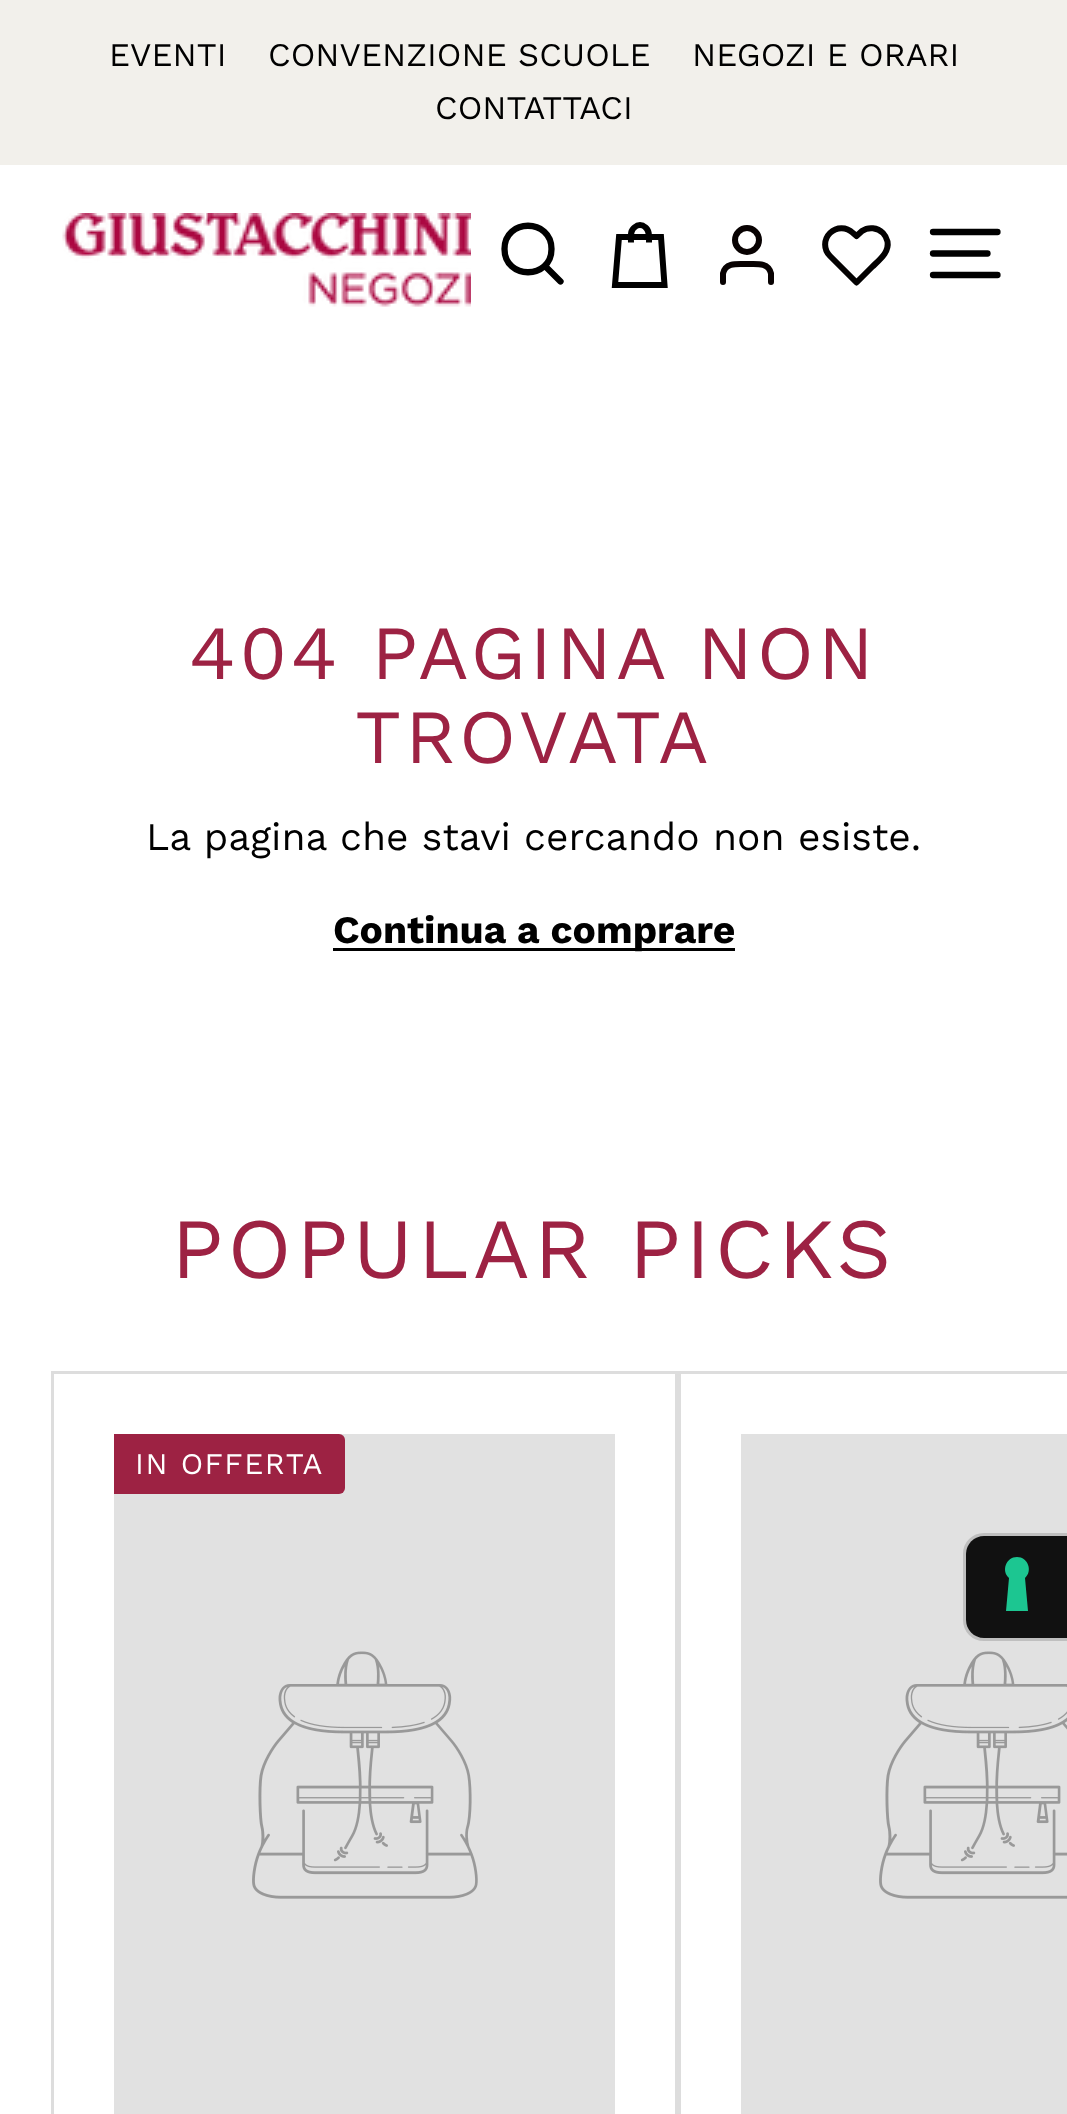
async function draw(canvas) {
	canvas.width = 1067;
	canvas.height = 2114;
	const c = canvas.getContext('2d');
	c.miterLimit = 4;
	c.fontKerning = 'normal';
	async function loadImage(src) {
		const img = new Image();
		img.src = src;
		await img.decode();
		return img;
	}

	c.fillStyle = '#fff';
	c.fillRect(0, 0, 1067, 2114);
	c.fillStyle = '#f2f0eb';
	c.fillRect(0, 0, 1067, 165);
	c.font = '33px Work Sans';
	c.fillStyle = '#000';
	for (const [text, x, y] of [
		['EVENTI', 109, 66],
		['CONVENZIONE SCUOLE', 268, 66],
		['NEGOZI E ORARI', 692, 66],
		['CONTATTACI', 435, 119],
	]) {
		c.fillText(text, x, y);
	}
	c.drawImage(await loadImage('img1.png'), 62, 213, 409, 94);
	c.beginPath();
	c.moveTo(551.5, 249);
	c.bezierCurveTo(551.5, 280, 504.5, 280, 504.5, 249);
	c.bezierCurveTo(504.5, 218, 551.5, 218, 551.5, 249);
	c.closePath();
	c.moveTo(560.5, 281.5);
	c.lineTo(545, 266);
	c.strokeStyle = '#000';
	c.lineWidth = 6.3;
	c.lineCap = 'round';
	c.lineJoin = 'round';
	c.stroke();
	c.beginPath();
	c.moveTo(619, 237);
	c.lineTo(661, 237);
	c.lineTo(664.5, 285);
	c.lineTo(615, 285);
	c.closePath();
	c.lineWidth = 6;
	c.lineCap = 'butt';
	c.lineJoin = 'miter';
	c.stroke();
	c.beginPath();
	c.moveTo(649, 242.5);
	c.bezierCurveTo(649, 237, 650, 230.5, 645, 227);
	c.bezierCurveTo(643.5, 225.5, 641.5, 225, 640, 225);
	c.bezierCurveTo(638, 225, 636.5, 225.5, 635, 227);
	c.bezierCurveTo(629.5, 230.5, 631, 237, 631, 242.5);
	c.stroke();
	c.beginPath();
	c.moveTo(771, 282);
	c.lineTo(771, 273.5);
	c.bezierCurveTo(768.5, 262, 756, 264, 747, 264);
	c.bezierCurveTo(738, 264, 725.5, 262, 723, 273.5);
	c.lineTo(723, 282);
	c.strokeStyle = '#080202';
	c.lineCap = 'round';
	c.lineJoin = 'round';
	c.stroke();
	c.beginPath();
	c.arc(747, 240, 12, 0, 2 * Math.PI);
	c.stroke();
	c.beginPath();
	c.moveTo(883, 233);
	c.bezierCurveTo(877.5, 227.5, 868.5, 226.5, 862, 231);
	c.lineTo(856.5, 236);
	c.lineTo(853, 233);
	c.bezierCurveTo(846.5, 226.5, 836.5, 226.5, 830, 233);
	c.bezierCurveTo(823.5, 239.5, 823.5, 249.5, 830, 256);
	c.lineTo(856.5, 282.5);
	c.lineTo(872, 267);
	c.bezierCurveTo(879, 260, 889.5, 252.5, 887.5, 241.5);
	c.bezierCurveTo(886.5, 238, 885, 235, 883, 233);
	c.closePath();
	c.strokeStyle = '#030101';
	c.stroke();
	c.beginPath();
	c.moveTo(933, 232);
	c.lineTo(997.5, 232);
	c.strokeStyle = '#000';
	c.lineWidth = 6.3;
	c.stroke();
	c.beginPath();
	c.moveTo(933, 253.5);
	c.lineTo(987.5, 253.5);
	c.stroke();
	c.beginPath();
	c.moveTo(933, 275);
	c.lineTo(997.5, 275);
	c.stroke();
	c.letterSpacing = '3.75px';
	c.font = '76.5px Work Sans';
	c.fillStyle = '#9d2243';
	c.fillText('404 PAGINA NON', 189, 679);
	c.fillText('TROVATA', 355, 763);
	c.letterSpacing = '0px';
	c.font = '39px Work Sans';
	c.fillStyle = '#000';
	c.fillText('La pagina che stavi cercando non esiste.', 146, 850);
	c.fillRect(333, 948, 402, 3);
	c.font = 'bold 39px Work Sans';
	c.fillText('Continua a comprare', 333, 943);
	c.letterSpacing = '4.25px';
	c.font = '85.75px Work Sans';
	c.fillStyle = '#9d2243';
	c.fillText('POPULAR PICKS', 171, 1278);
	for (const [x, y, w, h, color] of [
		[51, 1371, 1016, 3, '#ddd'],
		[675, 1371, 3, 743, '#ddd'],
		[51, 1374, 3, 740, '#ddd'],
		[114, 1434, 501, 680, '#e1e1e1'],
	]) {
		c.fillStyle = color;
		c.fillRect(x, y, w, h);
	}
	c.drawImage(await loadImage('img2.png'), 252, 1651, 226, 248);
	c.fillStyle = '#9d2243';
	c.beginPath();
	c.roundRect(114, 1434, 231, 60, [0, 6, 6, 0]);
	c.fill();
	c.letterSpacing = '1.5px';
	c.font = '30px Work Sans';
	c.fillStyle = '#fff';
	c.fillText('IN OFFERTA', 135, 1474);
	c.fillStyle = '#ddd';
	c.fillRect(678, 1374, 3, 740);
	c.fillStyle = '#e1e1e1';
	c.fillRect(741, 1434, 326, 680);
	c.drawImage(await loadImage('img3.png'), 879, 1651, 188, 248);
	c.beginPath();
	c.moveTo(984, 1534.5);
	c.lineTo(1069.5, 1534.5);
	c.lineTo(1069.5, 1639.5);
	c.lineTo(984, 1639.5);
	c.bezierCurveTo(973, 1639.5, 964.5, 1631, 964.5, 1620);
	c.lineTo(964.5, 1554);
	c.bezierCurveTo(964.5, 1543, 973, 1534.5, 984, 1534.5);
	c.closePath();
	c.strokeStyle = '#bfbfbf';
	c.lineWidth = 3;
	c.lineJoin = 'miter';
	c.stroke();
	c.fillStyle = '#111';
	c.beginPath();
	c.moveTo(984, 1536);
	c.lineTo(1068, 1536);
	c.lineTo(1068, 1638);
	c.lineTo(984, 1638);
	c.bezierCurveTo(974, 1638, 966, 1630, 966, 1620);
	c.lineTo(966, 1554);
	c.bezierCurveTo(966, 1544, 974, 1536, 984, 1536);
	c.closePath();
	c.fill();
	c.fillStyle = '#1cc691';
	c.beginPath();
	c.moveTo(1017, 1557);
	c.bezierCurveTo(1028, 1557, 1033, 1571, 1025, 1578);
	c.lineTo(1028, 1611);
	c.lineTo(1006, 1611);
	c.lineTo(1009, 1578);
	c.bezierCurveTo(1001, 1571, 1006, 1557, 1017, 1557);
	c.closePath();
	c.fill('evenodd');
}

draw(document.querySelector('canvas'));
